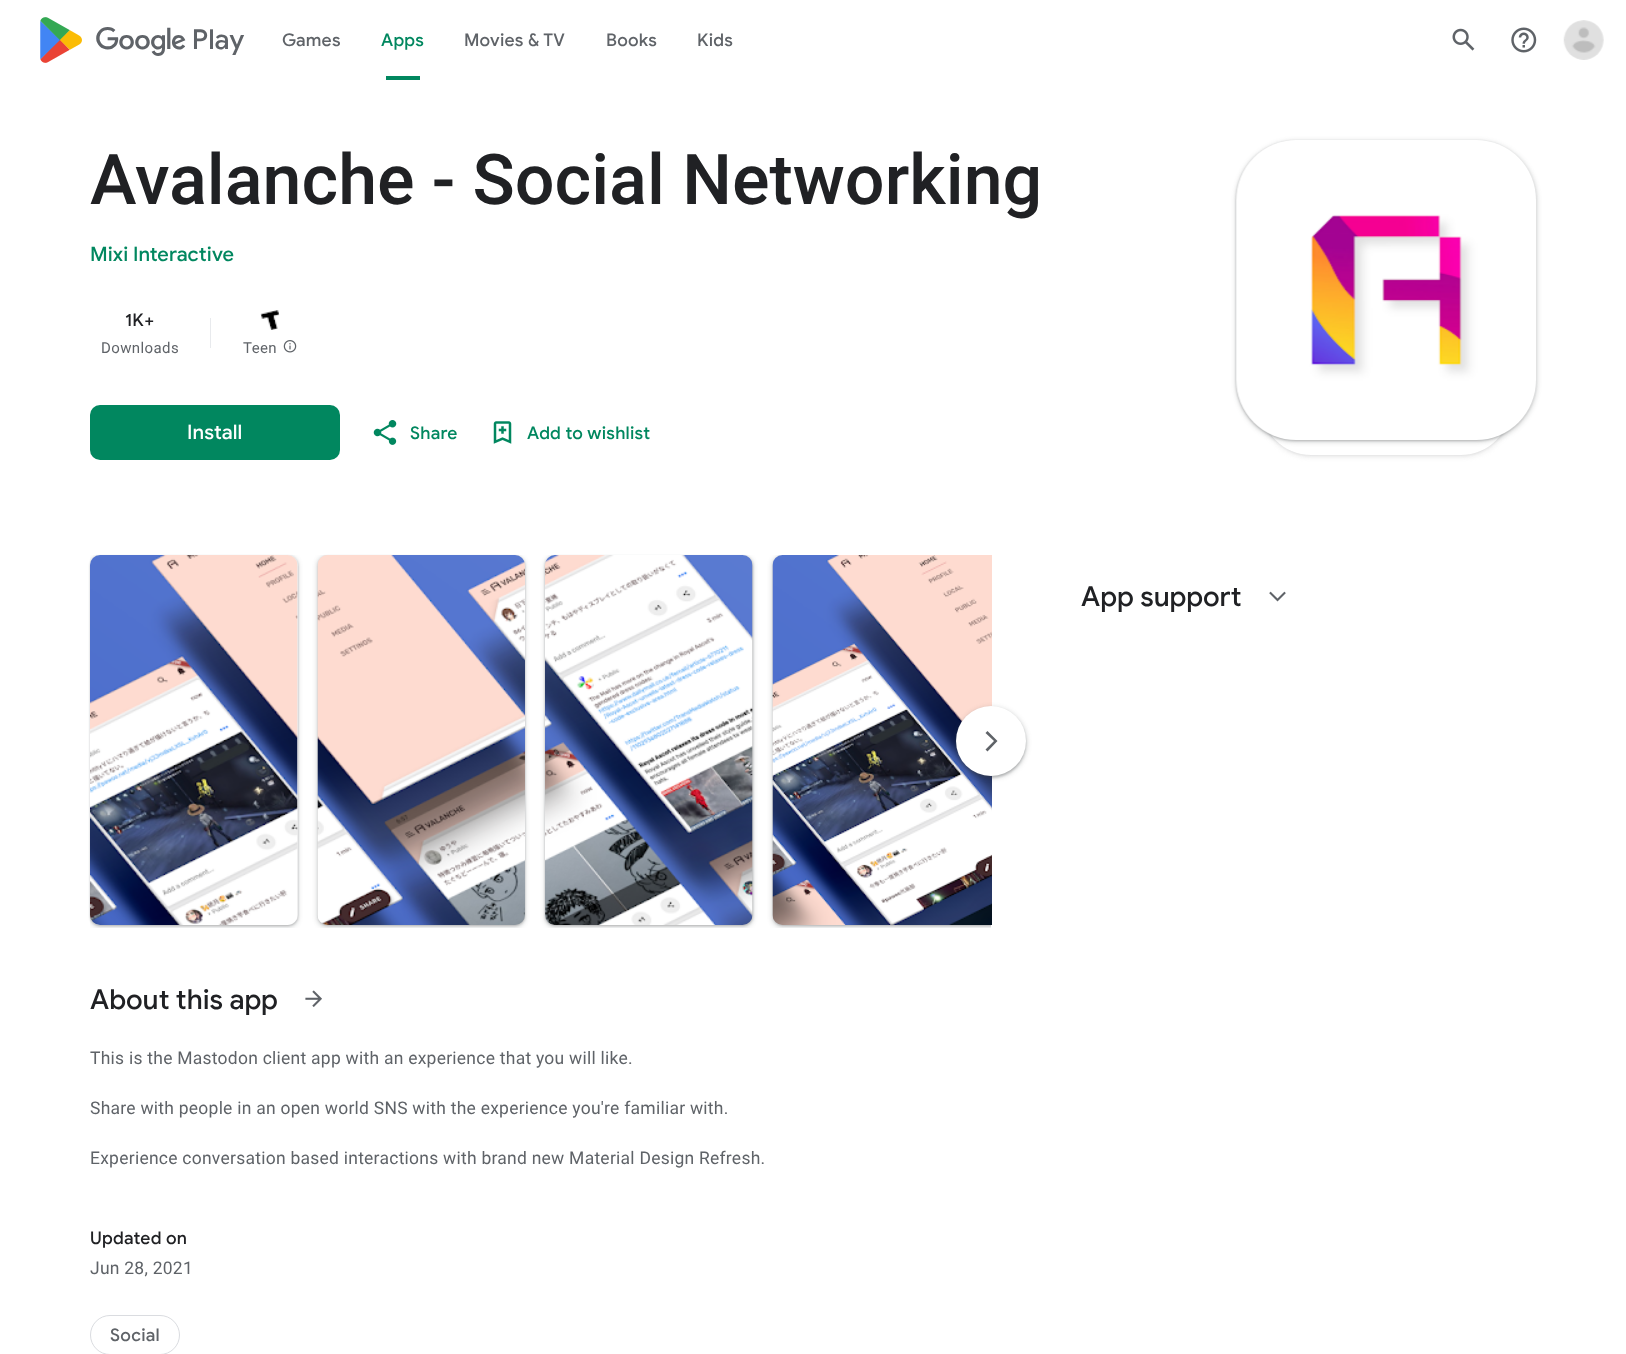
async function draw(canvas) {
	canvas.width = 1626;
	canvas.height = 1354;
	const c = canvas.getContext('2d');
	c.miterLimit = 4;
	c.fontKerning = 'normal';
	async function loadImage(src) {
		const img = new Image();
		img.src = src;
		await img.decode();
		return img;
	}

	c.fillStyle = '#fff';
	c.fillRect(0, 0, 1626, 1354);
	c.drawImage(await loadImage('img1.png'), 40, 17, 42, 46);
	c.font = '500 27.5px Google Sans';
	c.fillStyle = '#5f6368';
	c.fillText('google_logo Play', 95, 49);
	c.letterSpacing = '0.25px';
	c.font = '500 17.5px Google Sans';
	c.fillText('Games', 282, 46);
	c.fillStyle = '#01875f';
	c.fillText('Apps', 381, 46);
	c.fillRect(386, 76, 34, 4);
	c.fillStyle = '#5f6368';
	for (const [text, x, y] of [
		['Movies & TV', 464, 46],
		['Books', 606, 46],
		['Kids', 697, 46],
	]) {
		c.fillText(text, x, y);
	}
	c.drawImage(await loadImage('img2.png'), 1452, 28, 23, 23);
	c.drawImage(await loadImage('img3.png'), 1511, 27, 26, 26);
	c.drawImage(await loadImage('img4.png'), 1563, 20, 41, 40);
	c.letterSpacing = '0px';
	c.font = '500 70px Roboto';
	c.fillStyle = '#202124';
	c.fillText('Avalanche - Social Networking', 90, 204);
	c.letterSpacing = '0.1px';
	c.font = '500 20px Google Sans';
	c.fillStyle = '#01875f';
	c.fillText('Mixi Interactive', 90, 261);
	c.letterSpacing = '0.25px';
	c.font = '500 17.5px Google Sans';
	c.fillStyle = '#202124';
	c.fillText('1K+', 125, 326);
	c.letterSpacing = '0.4px';
	c.font = '15px Roboto';
	c.fillStyle = '#5f6368';
	c.fillText('Downloads', 101, 353);
	c.fillStyle = '#e8eaed';
	c.fillRect(210, 318, 1, 30);
	c.drawImage(await loadImage('img5.png'), 260, 310, 20, 20);
	c.fillStyle = '#5f6368';
	c.fillText('Teen', 243, 353);
	c.drawImage(await loadImage('img6.png'), 283, 340, 14, 13);
	c.save();
	c.beginPath();
	c.moveTo(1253, 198);
	c.lineTo(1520, 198);
	c.lineTo(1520, 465);
	c.lineTo(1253, 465);
	c.closePath();
	c.moveTo(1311, 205);
	c.lineTo(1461, 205);
	c.bezierCurveTo(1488.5, 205, 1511, 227.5, 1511, 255);
	c.lineTo(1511, 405);
	c.bezierCurveTo(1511, 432.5, 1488.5, 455, 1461, 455);
	c.lineTo(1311, 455);
	c.bezierCurveTo(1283.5, 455, 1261, 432.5, 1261, 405);
	c.lineTo(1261, 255);
	c.bezierCurveTo(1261, 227.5, 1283.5, 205, 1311, 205);
	c.closePath();
	c.clip('evenodd');
	c.fillStyle = '#9ea0a126';
	c.filter = 'blur(2px)';
	c.beginPath();
	c.roundRect(1260, 205, 253, 253, 51);
	c.fill();
	c.filter = 'none';
	c.restore();
	c.save();
	c.beginPath();
	c.moveTo(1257, 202);
	c.lineTo(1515, 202);
	c.lineTo(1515, 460);
	c.lineTo(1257, 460);
	c.closePath();
	c.moveTo(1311, 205);
	c.lineTo(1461, 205);
	c.bezierCurveTo(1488.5, 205, 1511, 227.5, 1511, 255);
	c.lineTo(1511, 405);
	c.bezierCurveTo(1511, 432.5, 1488.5, 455, 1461, 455);
	c.lineTo(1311, 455);
	c.bezierCurveTo(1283.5, 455, 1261, 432.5, 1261, 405);
	c.lineTo(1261, 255);
	c.bezierCurveTo(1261, 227.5, 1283.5, 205, 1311, 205);
	c.closePath();
	c.clip('evenodd');
	c.fillStyle = '#9ea0a14d';
	c.filter = 'blur(1px)';
	c.beginPath();
	c.roundRect(1261, 206, 250, 250, 50);
	c.fill();
	c.filter = 'none';
	c.restore();
	c.drawImage(await loadImage('img8.png'), 1261, 428, 249, 29);
	c.fillStyle = '#3c404326';
	c.filter = 'blur(2px)';
	c.beginPath();
	c.roundRect(1235, 140, 303, 303, 61);
	c.fill();
	c.filter = 'none';
	c.fillStyle = '#3c40434d';
	c.filter = 'blur(1px)';
	c.beginPath();
	c.roundRect(1236, 141, 300, 300, 60);
	c.fill();
	c.filter = 'none';
	c.drawImage(await loadImage('img7.png'), 1236, 140, 301, 300);
	c.fillStyle = '#01875f';
	c.beginPath();
	c.roundRect(90, 405, 250, 55, 10);
	c.fill();
	c.letterSpacing = '0.1px';
	c.font = '500 20px Google Sans';
	c.fillStyle = '#fff';
	c.fillText('Install', 187, 439);
	c.drawImage(await loadImage('img9.png'), 373, 420, 24, 25);
	c.letterSpacing = '0.25px';
	c.font = '500 17.5px Google Sans';
	c.fillStyle = '#01875f';
	c.fillText('Share', 410, 439);
	c.drawImage(await loadImage('img10.png'), 493, 421, 19, 23);
	c.fillText('Add to wishlist', 527, 439);
	c.letterSpacing = '0px';
	c.font = '500 27.5px Google Sans';
	c.fillStyle = '#202124';
	c.fillText('App support', 1081, 606);
	c.save();
	c.beginPath();
	c.rect(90, 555, 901, 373);
	c.clip();
	c.fillStyle = '#3c404326';
	c.filter = 'blur(2px)';
	c.beginPath();
	c.roundRect(771, 555, 554, 373, 11);
	c.fill();
	c.filter = 'none';
	c.fillStyle = '#3c40434d';
	c.filter = 'blur(1px)';
	c.beginPath();
	c.roundRect(773, 556, 551, 370, 10);
	c.fill();
	c.filter = 'none';
	c.restore();
	c.drawImage(await loadImage('img11.png'), 1269, 591, 17, 11);
	c.save();
	c.beginPath();
	c.rect(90, 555, 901, 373);
	c.clip();
	c.fillStyle = '#3c404326';
	c.filter = 'blur(2px)';
	c.beginPath();
	c.roundRect(89, 555, 210, 373, 11);
	c.fill();
	c.filter = 'none';
	c.restore();
	c.save();
	c.beginPath();
	c.moveTo(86, 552);
	c.lineTo(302, 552);
	c.lineTo(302, 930);
	c.lineTo(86, 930);
	c.closePath();
	c.moveTo(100, 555);
	c.lineTo(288, 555);
	c.bezierCurveTo(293.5, 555, 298, 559.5, 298, 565);
	c.lineTo(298, 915);
	c.bezierCurveTo(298, 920.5, 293.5, 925, 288, 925);
	c.lineTo(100, 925);
	c.bezierCurveTo(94.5, 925, 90, 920.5, 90, 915);
	c.lineTo(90, 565);
	c.bezierCurveTo(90, 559.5, 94.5, 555, 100, 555);
	c.closePath();
	c.clip('evenodd');
	c.fillStyle = '#3c40434d';
	c.filter = 'blur(1px)';
	c.beginPath();
	c.roundRect(90, 556, 208, 370, 10);
	c.fill();
	c.filter = 'none';
	c.restore();
	c.drawImage(await loadImage('img12.png'), 90, 555, 208, 370);
	c.save();
	c.beginPath();
	c.rect(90, 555, 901, 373);
	c.clip();
	c.fillStyle = '#3c404326';
	c.filter = 'blur(2px)';
	c.beginPath();
	c.roundRect(316, 555, 210, 373, 11);
	c.fill();
	c.filter = 'none';
	c.restore();
	c.fillStyle = '#3c40434d';
	c.filter = 'blur(1px)';
	c.beginPath();
	c.roundRect(318, 556, 207, 370, 10);
	c.fill();
	c.filter = 'none';
	c.drawImage(await loadImage('img13.png'), 317, 555, 208, 370);
	c.save();
	c.beginPath();
	c.rect(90, 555, 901, 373);
	c.clip();
	c.fillStyle = '#3c404326';
	c.filter = 'blur(2px)';
	c.beginPath();
	c.roundRect(544, 555, 210, 373, 11);
	c.fill();
	c.filter = 'none';
	c.restore();
	c.filter = 'blur(1px)';
	c.beginPath();
	c.roundRect(545, 556, 208, 370, 10);
	c.fill();
	c.filter = 'none';
	c.drawImage(await loadImage('img14.png'), 545, 555, 208, 370);
	c.drawImage(await loadImage('img15.png'), 772, 555, 220, 370);
	c.fillStyle = '#3c404326';
	c.filter = 'blur(2px)';
	c.beginPath();
	c.roundRect(955, 706, 73, 73, 36.5);
	c.fill();
	c.filter = 'none';
	c.fillStyle = '#3c40434d';
	c.filter = 'blur(1px)';
	c.beginPath();
	c.roundRect(956, 708, 70, 70, 35);
	c.fill();
	c.filter = 'none';
	c.fillStyle = '#fff';
	c.beginPath();
	c.arc(991, 741, 35, 0, 2 * Math.PI);
	c.fill();
	c.fillStyle = '#5f6368';
	c.beginPath();
	c.moveTo(985.5, 749.5);
	c.lineTo(987.5, 751.5);
	c.lineTo(997.5, 741);
	c.lineTo(987.5, 731);
	c.lineTo(985.5, 733);
	c.lineTo(994, 741);
	c.closePath();
	c.fill();
	c.fillStyle = '#202124';
	c.fillText('About this app', 90, 1009);
	c.drawImage(await loadImage('img16.png'), 305, 990, 17, 17);
	c.letterSpacing = '0.25px';
	c.font = '17.5px Roboto';
	c.fillStyle = '#5f6368';
	for (const [text, x, y] of [
		['This is the Mastodon client app with an experience that you will like.', 90, 1064],
		['Share with people in an open world SNS with the experience you\'re familiar with.', 90, 1114],
		['Experience conversation based interactions with brand new Material Design Refresh.', 90, 1164],
	]) {
		c.fillText(text, x, y);
	}
	c.font = '500 17.5px Google Sans';
	c.fillStyle = '#202124';
	c.fillText('Updated on', 90, 1244);
	c.font = '17.5px Roboto';
	c.fillStyle = '#5f6368';
	c.fillText('Jun 28, 2021', 90, 1274);
	c.beginPath();
	c.roundRect(90.5, 1315.5, 89, 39, 19.5);
	c.strokeStyle = '#dadce0';
	c.stroke();
	c.font = '500 17.5px Google Sans';
	c.fillText('Social', 110, 1341);
}

draw(document.querySelector('canvas'));
